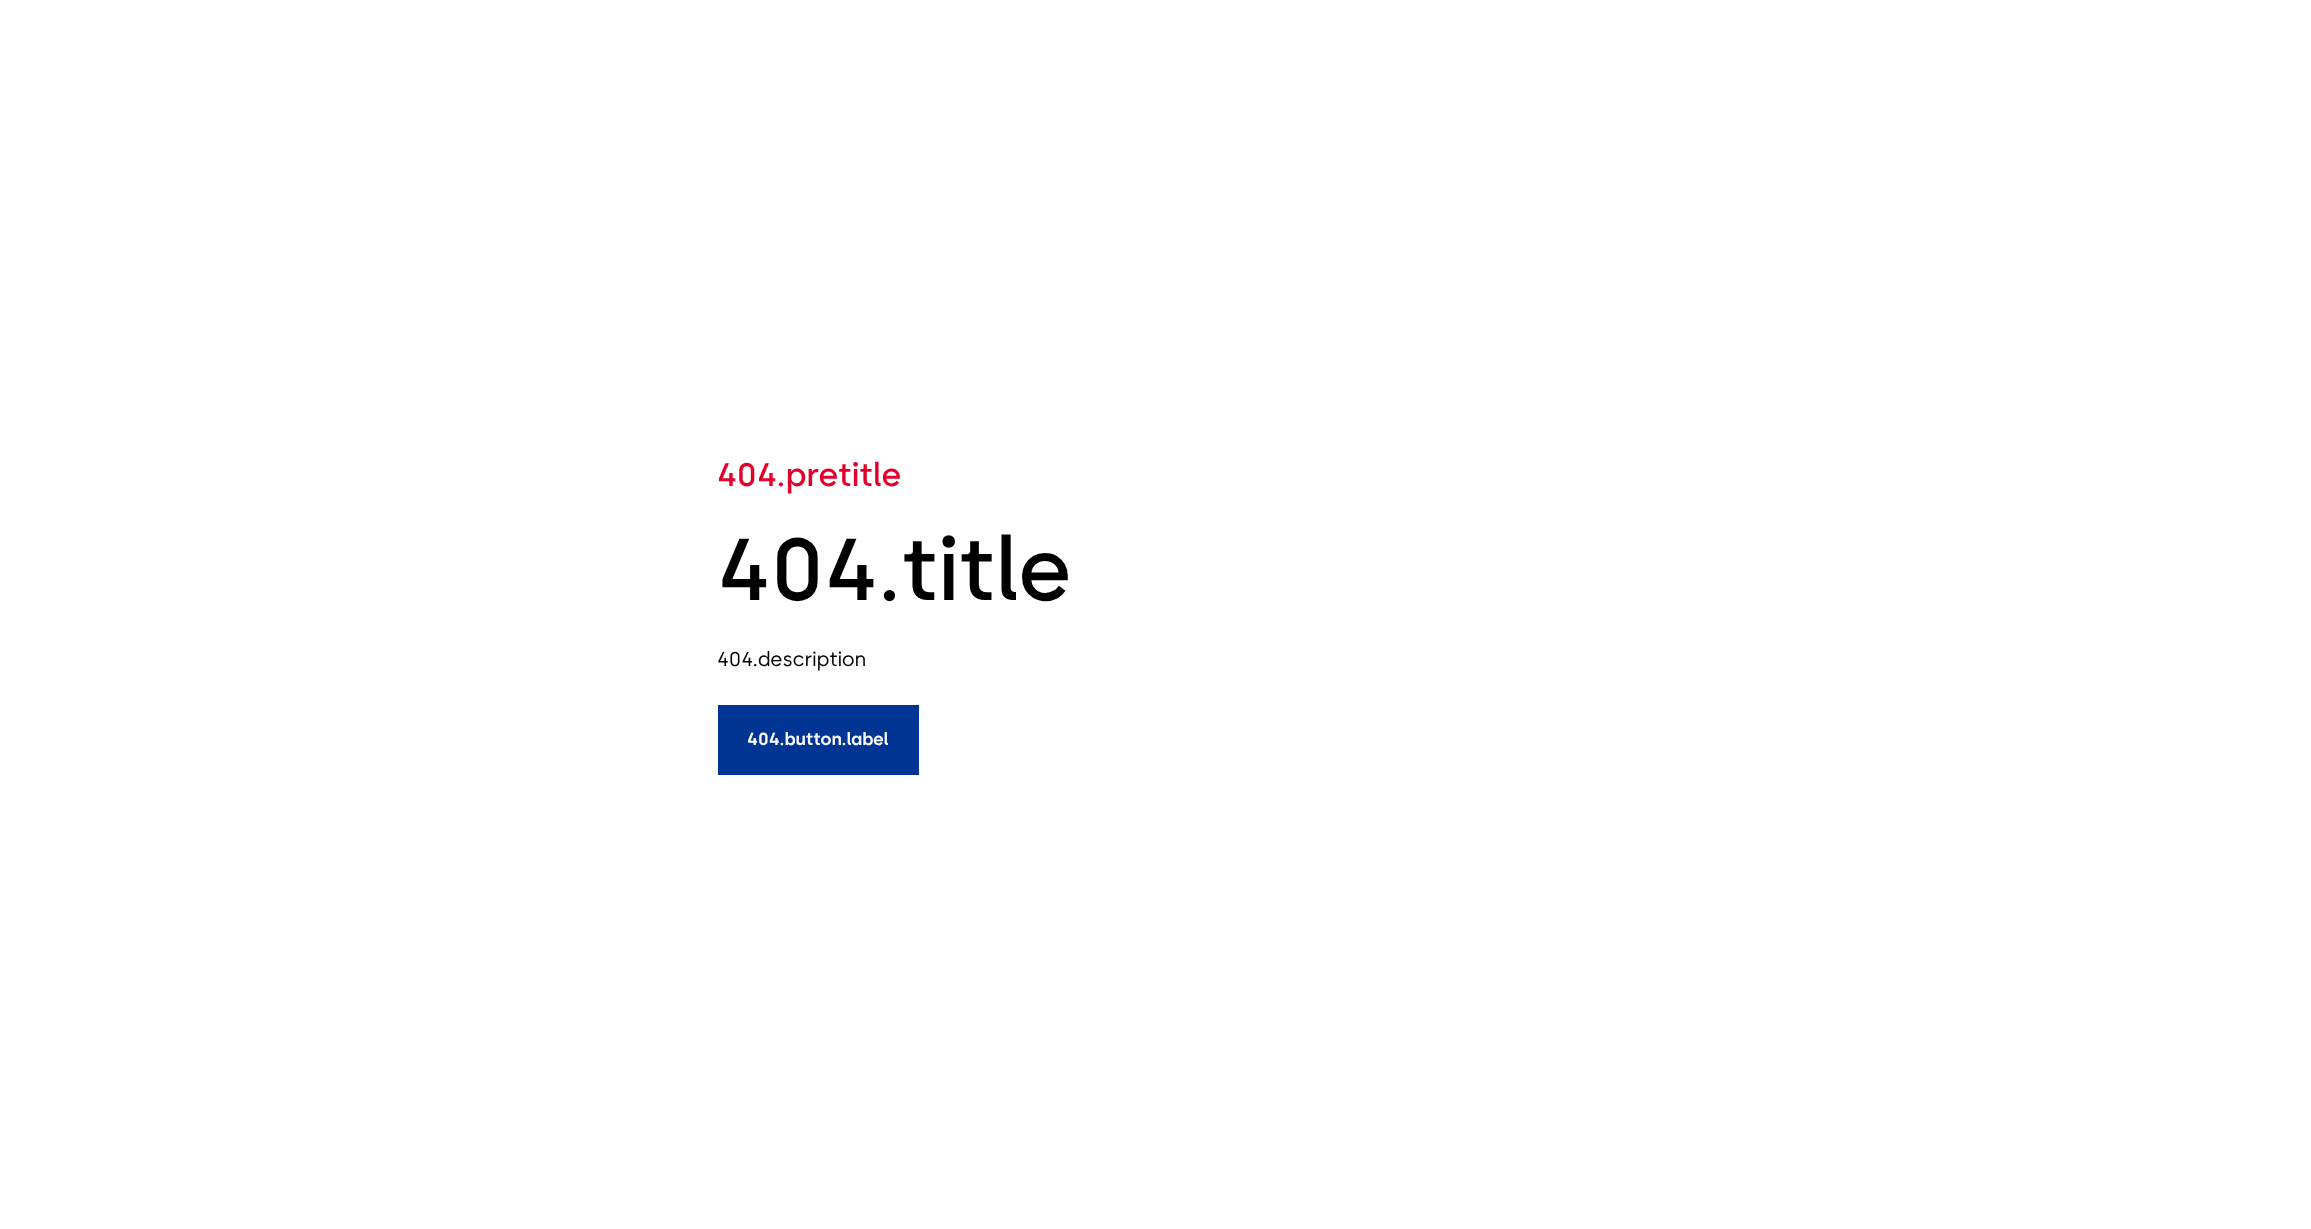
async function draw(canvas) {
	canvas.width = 2311;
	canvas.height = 1229;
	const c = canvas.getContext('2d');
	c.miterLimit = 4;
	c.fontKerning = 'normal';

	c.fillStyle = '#fff';
	c.fillRect(0, 0, 2311, 1229);
	c.font = '600 32.5px "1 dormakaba"';
	c.fillStyle = '#e4002b';
	c.fillText('404.pretitle', 717, 486);
	c.font = '600 87.5px "1 dormakaba"';
	c.fillStyle = '#000';
	c.fillText('404.title', 717, 600);
	c.font = '20px "1 dormakaba"';
	c.fillText('404.description', 717, 666);
	c.fillStyle = '#003594';
	c.fillRect(718, 705, 201, 70);
	c.font = 'bold 17.5px "1 dormakaba"';
	c.fillStyle = '#fff';
	c.fillText('404.button.label', 747, 745);
}

draw(document.querySelector('canvas'));
